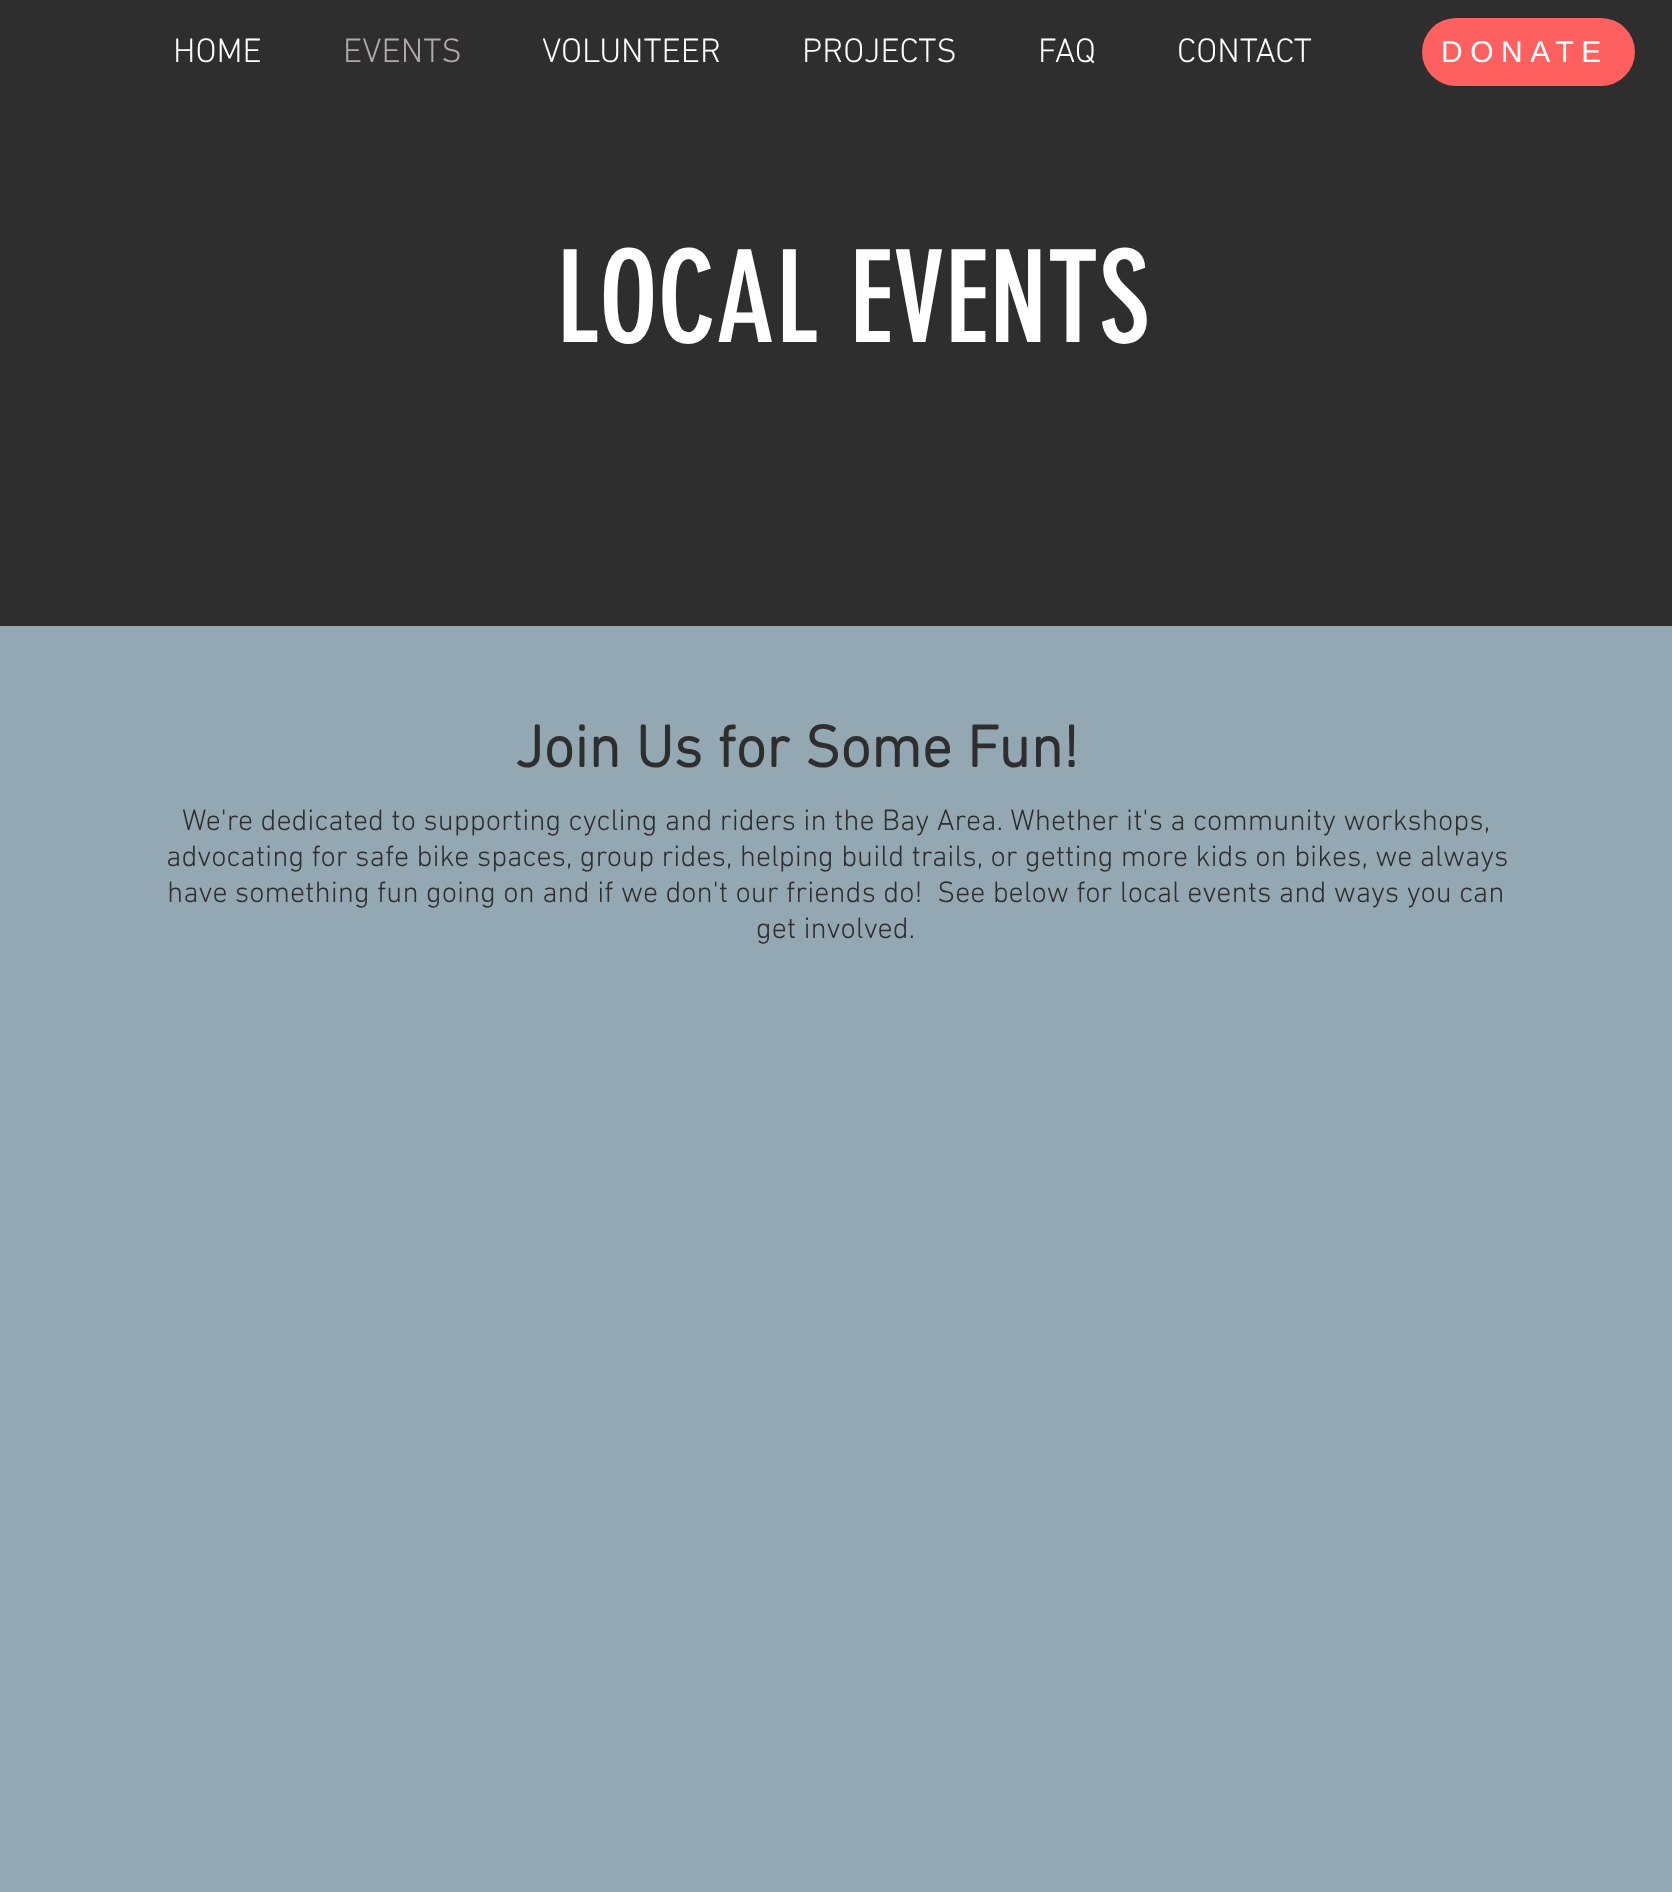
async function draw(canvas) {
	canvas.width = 1672;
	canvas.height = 1892;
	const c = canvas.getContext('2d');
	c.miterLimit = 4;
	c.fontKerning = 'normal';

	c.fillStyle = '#94a8b3';
	c.fillRect(0, 0, 1672, 1892);
	c.fillStyle = '#2f2e2e';
	c.fillRect(0, 0, 1672, 626);
	c.font = '300 34.5px "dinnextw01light"';
	c.fillStyle = '#fff';
	c.fillText('HOME', 173, 62);
	c.fillStyle = '#b0aaa9';
	c.fillText('EVENTS', 343, 62);
	c.fillStyle = '#fff';
	for (const [text, x, y] of [
		['VOLUNTEER', 542, 62],
		['PROJECTS', 802, 62],
		['FAQ', 1038, 62],
		['CONTACT', 1177, 62],
	]) {
		c.fillText(text, x, y);
	}
	c.fillStyle = '#fe6060';
	c.beginPath();
	c.roundRect(1422, 18, 213, 68, 34);
	c.fill();
	c.letterSpacing = '7.5px';
	c.font = '30px Liberation Sans';
	c.fillStyle = '#fff';
	c.fillText('DONATE', 1441, 62);
	c.letterSpacing = '0px';
	c.font = '126px "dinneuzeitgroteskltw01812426"';
	c.fillText('LOCAL EVENTS', 555, 342);
	c.font = 'bold 60px "dinnextw01light"';
	c.fillStyle = '#2f2e2e';
	c.fillText('Join Us for Some Fun!', 515, 767);
	c.font = '300 30px "dinnextw01light"';
	for (const [text, x, y] of [
		['We\'re dedicated to supporting cycling and riders in the Bay Area. Whether it\'s a community workshops,', 182, 830],
		['advocating for safe bike spaces, group rides, helping build trails, or getting more kids on bikes, we always', 166, 866],
		['have something fun going on and if we don\'t our friends do!  See below for local events and ways you can', 167, 902],
		['get involved.', 756, 938],
	]) {
		c.fillText(text, x, y);
	}
}

draw(document.querySelector('canvas'));
